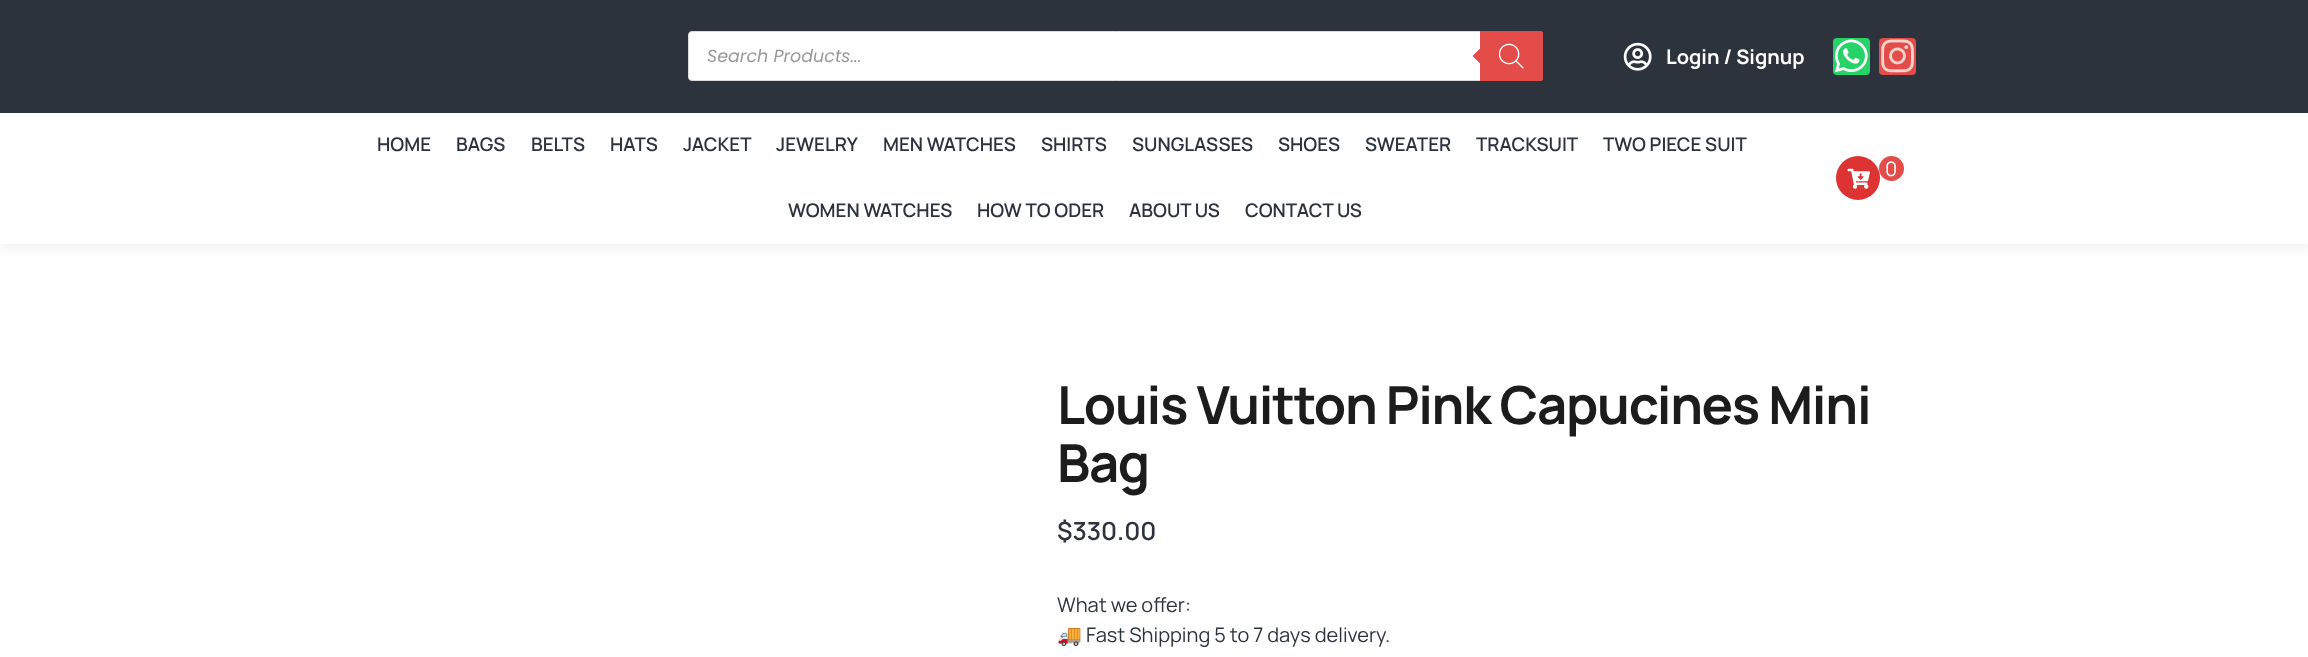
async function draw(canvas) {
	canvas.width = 2308;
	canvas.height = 657;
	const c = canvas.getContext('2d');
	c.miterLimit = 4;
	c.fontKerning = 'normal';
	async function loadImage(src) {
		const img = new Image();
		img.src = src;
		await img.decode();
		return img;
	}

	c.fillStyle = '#fff';
	c.fillRect(0, 0, 2308, 657);
	c.fillStyle = '#0000000d';
	c.filter = 'blur(6px)';
	c.beginPath();
	c.rect(0, 119, 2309, 131);
	c.fill();
	c.filter = 'none';
	c.fillStyle = '#2d333d';
	c.fillRect(0, 0, 2308, 113);
	c.fillStyle = '#fff';
	c.beginPath();
	c.roundRect(688.5, 31.5, 854, 49, 3.5);
	c.fill();
	c.strokeStyle = '#ddd';
	c.stroke();
	c.font = 'italic 17.5px Poppins';
	c.fillStyle = '#999';
	c.fillText('Search Products...', 707, 62);
	c.fillStyle = '#e44c4a';
	c.beginPath();
	c.roundRect(1480, 31, 63, 50, [0, 2.5, 2.5, 0]);
	c.fill();
	c.beginPath();
	c.moveTo(1482.5, 46);
	c.lineTo(1482.5, 66);
	c.lineTo(1472.5, 56);
	c.closePath();
	c.fill();
	c.drawImage(await loadImage('img1.png'), 1499, 43, 25, 26);
	c.drawImage(await loadImage('img2.png'), 1623, 42, 29, 29);
	c.font = 'bold 20px Manrope';
	c.fillStyle = '#fff';
	c.fillText('Login / Signup', 1666, 64);
	c.fillStyle = '#25d366';
	c.beginPath();
	c.roundRect(1833, 38, 37, 37, 4);
	c.fill();
	c.drawImage(await loadImage('img3.png'), 1834, 39, 34, 34);
	c.fillStyle = '#e44c4a';
	c.beginPath();
	c.roundRect(1879, 38, 37, 37, 4);
	c.fill();
	c.drawImage(await loadImage('img4.png'), 1881, 39, 33, 34);
	c.fillStyle = '#fff';
	c.fillRect(0, 114, 2308, 130);
	c.font = '600 18.75px Manrope';
	c.fillStyle = '#2d333d';
	for (const [text, x, y] of [
		['HOME', 377, 151],
		['BAGS', 456, 151],
		['BELTS', 531, 151],
		['HATS', 610, 151],
		['JACKET', 683, 151],
		['JEWELRY', 776, 151],
		['MEN WATCHES', 883, 151],
		['SHIRTS', 1041, 151],
		['SUNGLASSES', 1132, 151],
		['SHOES', 1278, 151],
		['SWEATER', 1365, 151],
		['TRACKSUIT', 1476, 151],
		['TWO PIECE SUIT', 1603, 151],
		['WOMEN WATCHES', 788, 217],
		['HOW TO ODER', 977, 217],
		['ABOUT US', 1129, 217],
		['CONTACT US', 1245, 217],
	]) {
		c.fillText(text, x, y);
	}
	c.fillStyle = '#d33';
	c.beginPath();
	c.arc(1858, 178, 22, 0, 2 * Math.PI);
	c.fill();
	c.drawImage(await loadImage('img5.png'), 1847, 168, 23, 21);
	c.fillStyle = '#e44c4a';
	c.beginPath();
	c.arc(1891.5, 168.5, 12.5, 0, 2 * Math.PI);
	c.fill();
	c.font = '20px Manrope';
	c.fillStyle = '#fff';
	c.fillText('0', 1885, 176);
	c.letterSpacing = '-1.25px';
	c.font = 'bold 52.5px Manrope';
	c.fillStyle = '#1d1c1c';
	c.fillText('Louis Vuitton Pink Capucines Mini', 1057, 424);
	c.fillText('Bag', 1057, 482);
	c.letterSpacing = '0px';
	c.font = '600 25px Manrope';
	c.fillStyle = '#2d333d';
	c.fillText('$330.00', 1057, 540);
	c.font = '20px Manrope';
	c.fillText('What we offer:', 1057, 612);
	c.font = '20px Noto Color Emoji';
	c.fillText('🚚', 1057, 642);
	c.font = '20px Manrope';
	c.fillText('Fast Shipping 5 to 7 days delivery.', 1086, 642);
}

draw(document.querySelector('canvas'));
